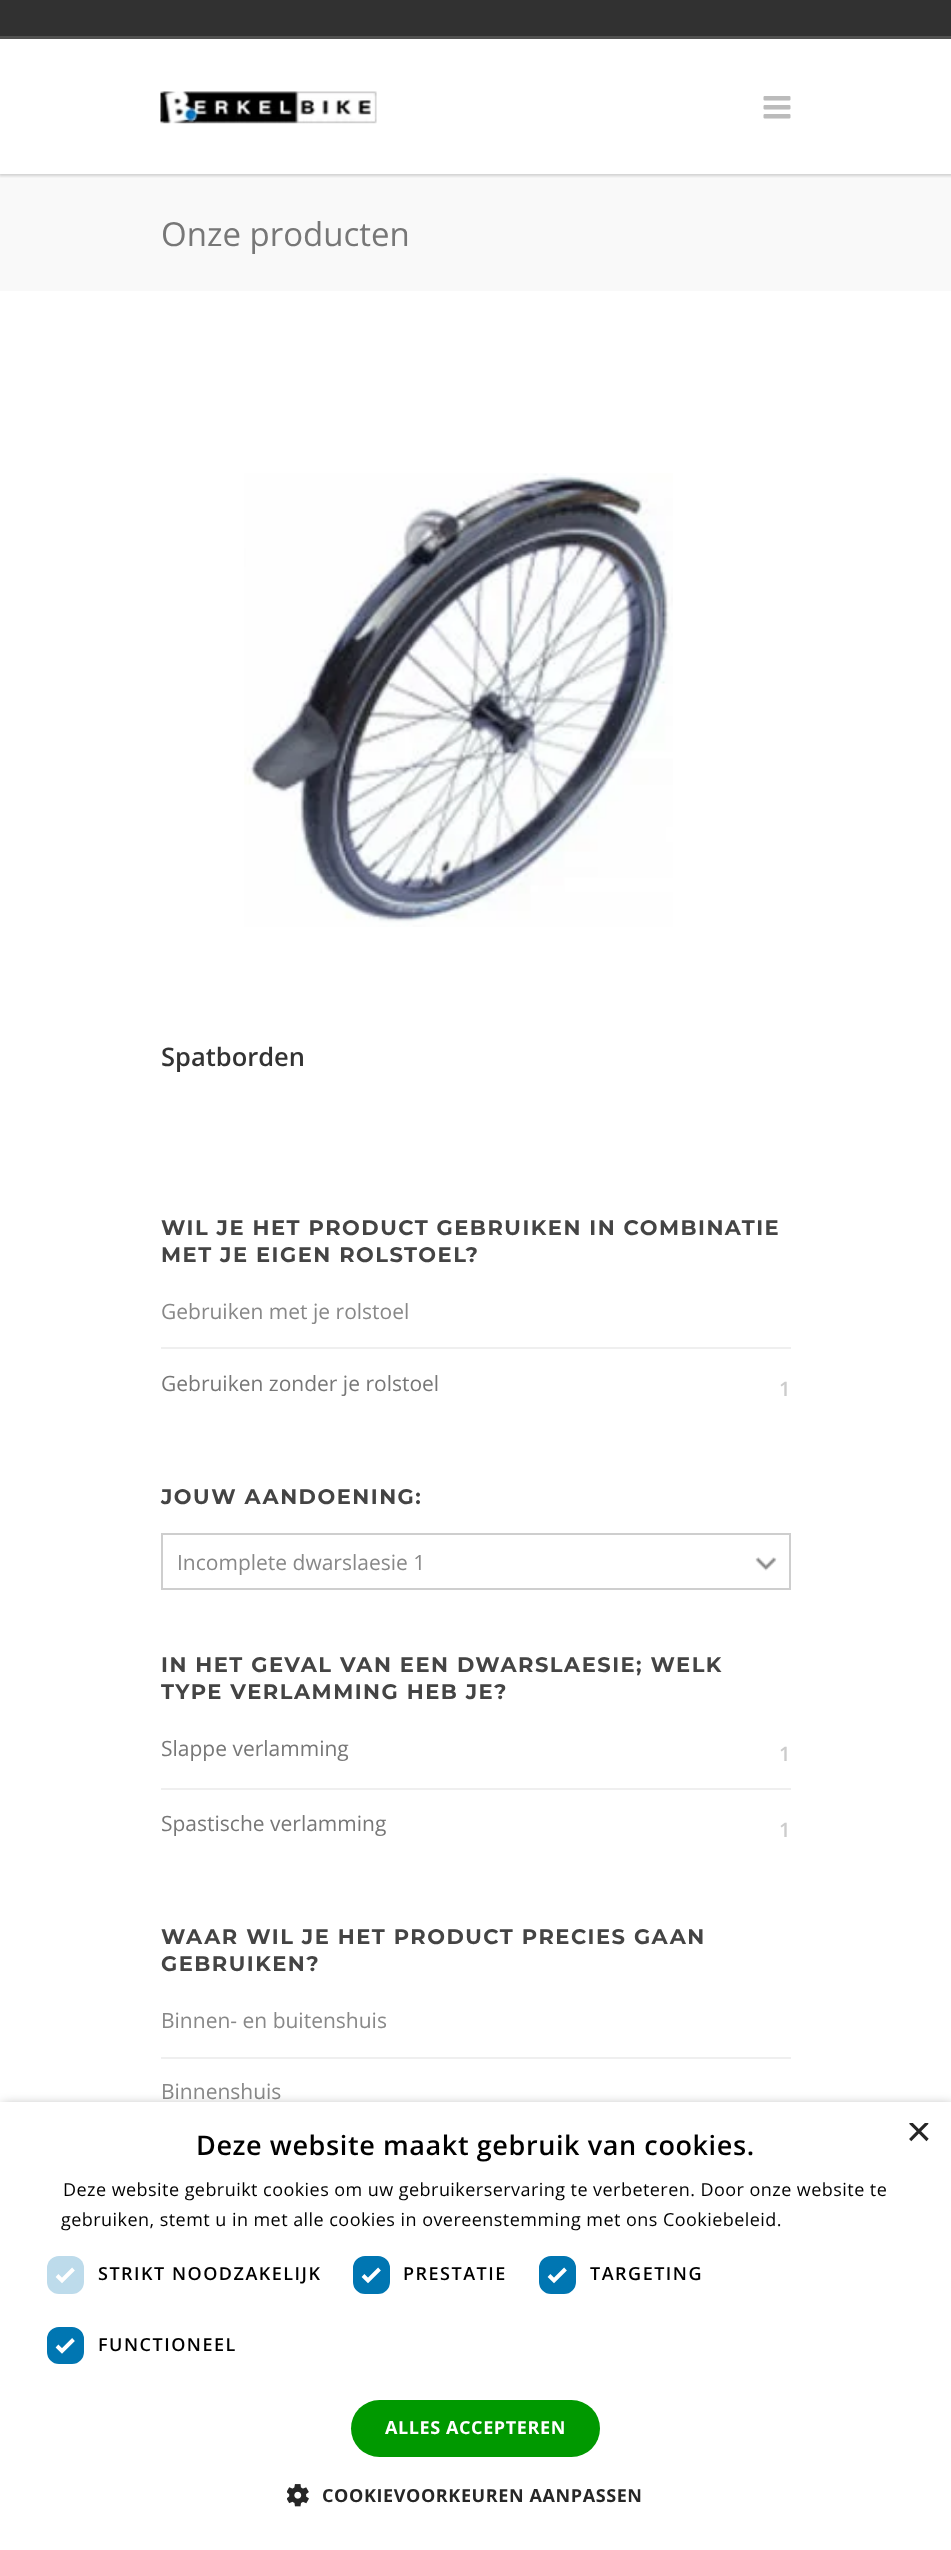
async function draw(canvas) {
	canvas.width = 951;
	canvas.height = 2550;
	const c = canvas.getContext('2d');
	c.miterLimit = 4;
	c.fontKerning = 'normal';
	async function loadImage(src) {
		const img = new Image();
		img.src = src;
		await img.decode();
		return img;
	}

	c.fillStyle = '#fff';
	c.fillRect(0, 0, 951, 2550);
	c.fillStyle = '#f9f9f9';
	c.fillRect(0, 174, 951, 117);
	c.save();
	c.beginPath();
	c.rect(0, 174, 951, 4);
	c.clip();
	c.fillStyle = '#00000029';
	c.filter = 'blur(1.5px)';
	c.beginPath();
	c.rect(-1, 38, 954, 138);
	c.fill();
	c.filter = 'none';
	c.restore();
	c.fillStyle = '#313131';
	c.fillRect(0, 0, 951, 36);
	c.fillStyle = '#515150';
	c.fillRect(0, 36, 951, 3);
	c.drawImage(await loadImage('img1.png'), 160, 91, 217, 33);
	c.drawImage(await loadImage('img2.png'), 763, 96, 28, 23);
	c.font = '33px Open Sans';
	c.fillStyle = '#777';
	c.fillText('Onze producten', 161, 246);
	c.drawImage(await loadImage('img3.png'), 244, 473, 429, 454);
	c.font = '600 25.5px Open Sans';
	c.fillStyle = '#333';
	c.fillText('Spatborden', 161, 1066);
	c.letterSpacing = '1.5px';
	c.font = 'bold 21px Montserrat';
	c.fillStyle = '#444';
	c.fillText('WIL JE HET PRODUCT GEBRUIKEN IN COMBINATIE', 161, 1235);
	c.fillText('MET JE EIGEN ROLSTOEL?', 161, 1262);
	c.fillStyle = '#efefef';
	c.fillRect(161, 1347, 630, 2);
	c.letterSpacing = '0px';
	c.font = '21px Open Sans';
	c.fillStyle = '#888';
	c.fillText('Gebruiken met je rolstoel', 161, 1319);
	c.fillStyle = '#777';
	c.fillText('Gebruiken zonder je rolstoel', 161, 1391);
	c.font = '600 20px Open Sans';
	c.fillStyle = '#ccc';
	c.fillText('1', 779, 1396);
	c.letterSpacing = '1.5px';
	c.font = 'bold 21px Montserrat';
	c.fillStyle = '#444';
	c.fillText('JOUW AANDOENING:', 161, 1504);
	c.drawImage(await loadImage('img4.png'), 755, 1557, 22, 14);
	c.strokeStyle = '#cecece';
	c.lineWidth = 2;
	c.strokeRect(162, 1534, 628, 55);
	c.letterSpacing = '0px';
	c.font = '21px Open Sans';
	c.fillStyle = '#888';
	c.fillText('Incomplete dwarslaesie 1', 177, 1570);
	c.letterSpacing = '1.5px';
	c.font = 'bold 21px Montserrat';
	c.fillStyle = '#444';
	c.fillText('IN HET GEVAL VAN EEN DWARSLAESIE; WELK', 161, 1672);
	c.fillText('TYPE VERLAMMING HEB JE?', 161, 1699);
	c.fillStyle = '#efefef';
	c.fillRect(161, 1788, 630, 2);
	c.letterSpacing = '0px';
	c.font = '21px Open Sans';
	c.fillStyle = '#777';
	c.fillText('Slappe verlamming', 161, 1756);
	c.font = '600 20px Open Sans';
	c.fillStyle = '#ccc';
	c.fillText('1', 779, 1761);
	c.font = '21px Open Sans';
	c.fillStyle = '#777';
	c.fillText('Spastische verlamming', 161, 1831);
	c.font = '600 20px Open Sans';
	c.fillStyle = '#ccc';
	c.fillText('1', 779, 1837);
	c.letterSpacing = '1.5px';
	c.font = 'bold 21px Montserrat';
	c.fillStyle = '#444';
	c.fillText('WAAR WIL JE HET PRODUCT PRECIES GAAN', 161, 1944);
	c.fillText('GEBRUIKEN?', 161, 1971);
	c.fillStyle = '#efefef';
	c.fillRect(161, 2057, 630, 2);
	c.letterSpacing = '0px';
	c.font = '21px Open Sans';
	c.fillStyle = '#888';
	c.fillText('Binnen- en buitenshuis', 161, 2028);
	c.fillText('Binnenshuis', 161, 2099);
	c.fillStyle = '#00000059';
	c.filter = 'blur(6px)';
	c.beginPath();
	c.rect(2, 2105, 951, 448);
	c.fill();
	c.filter = 'none';
	c.fillStyle = '#fff';
	c.fillRect(0, 2102, 951, 448);
	c.letterSpacing = '0.6px';
	c.font = '600 27px Open Sans';
	c.fillStyle = '#000';
	c.fillText('Deze website maakt gebruik van cookies.', 196, 2155);
	c.save();
	c.beginPath();
	c.rect(906, 2123, 23, 22);
	c.clip();
	c.letterSpacing = '0px';
	c.font = '44px Liberation Sans';
	c.fillStyle = '#262626';
	c.fillText('×', 906, 2146);
	c.restore();
	c.letterSpacing = '0.45px';
	c.font = '18px Open Sans';
	c.fillText('Deze website gebruikt cookies om uw gebruikerservaring te verbeteren. Door onze website te', 63, 2196);
	c.fillText('gebruiken, stemt u in met alle cookies in overeenstemming met ons Cookiebeleid.', 61, 2226);
	c.fillStyle = '#bddbeb';
	c.beginPath();
	c.roundRect(47, 2256, 37, 38, 12);
	c.fill();
	c.beginPath();
	c.moveTo(57, 2275.5);
	c.lineTo(62, 2280.5);
	c.lineTo(73.5, 2269);
	c.strokeStyle = '#fff';
	c.lineWidth = 3.9;
	c.stroke();
	c.letterSpacing = '1.5px';
	c.font = '600 18px Open Sans';
	c.fillStyle = '#000';
	c.fillText('STRIKT NOODZAKELIJK', 98, 2280);
	c.fillStyle = '#0076b2';
	c.beginPath();
	c.roundRect(354.5, 2257.5, 34, 35, 10.5);
	c.fill();
	c.strokeStyle = '#0076b2';
	c.lineWidth = 3;
	c.stroke();
	c.beginPath();
	c.moveTo(363, 2275.5);
	c.lineTo(368, 2280.5);
	c.lineTo(379.5, 2269);
	c.strokeStyle = '#fff';
	c.lineWidth = 3.9;
	c.stroke();
	c.fillStyle = '#000';
	c.fillText('PRESTATIE', 403, 2280);
	c.fillStyle = '#0076b2';
	c.beginPath();
	c.roundRect(540.5, 2257.5, 34, 35, 10.5);
	c.fill();
	c.strokeStyle = '#0076b2';
	c.lineWidth = 3;
	c.stroke();
	c.beginPath();
	c.moveTo(549, 2275.5);
	c.lineTo(554, 2280.5);
	c.lineTo(565.5, 2269);
	c.strokeStyle = '#fff';
	c.lineWidth = 3.9;
	c.stroke();
	c.fillStyle = '#000';
	c.fillText('TARGETING', 590, 2280);
	c.fillStyle = '#0076b2';
	c.beginPath();
	c.roundRect(48.5, 2328.5, 34, 34, 10.5);
	c.fill();
	c.strokeStyle = '#0076b2';
	c.lineWidth = 3;
	c.stroke();
	c.beginPath();
	c.moveTo(57, 2346);
	c.lineTo(62, 2351);
	c.lineTo(73.5, 2339.5);
	c.strokeStyle = '#fff';
	c.lineWidth = 3.9;
	c.stroke();
	c.fillStyle = '#000';
	c.fillText('FUNCTIONEEL', 98, 2351);
	c.fillStyle = '#090';
	c.beginPath();
	c.roundRect(351, 2400, 249, 57, 28.5);
	c.fill();
	c.letterSpacing = '0.6px';
	c.font = 'bold 18px Open Sans';
	c.fillStyle = '#fff';
	c.fillText('ALLES ACCEPTEREN', 385, 2434);
	c.drawImage(await loadImage('img5.png'), 287, 2484, 22, 23);
	c.fillStyle = '#262626';
	c.fillText('COOKIEVOORKEUREN AANPASSEN', 322, 2502);
}

draw(document.querySelector('canvas'));
